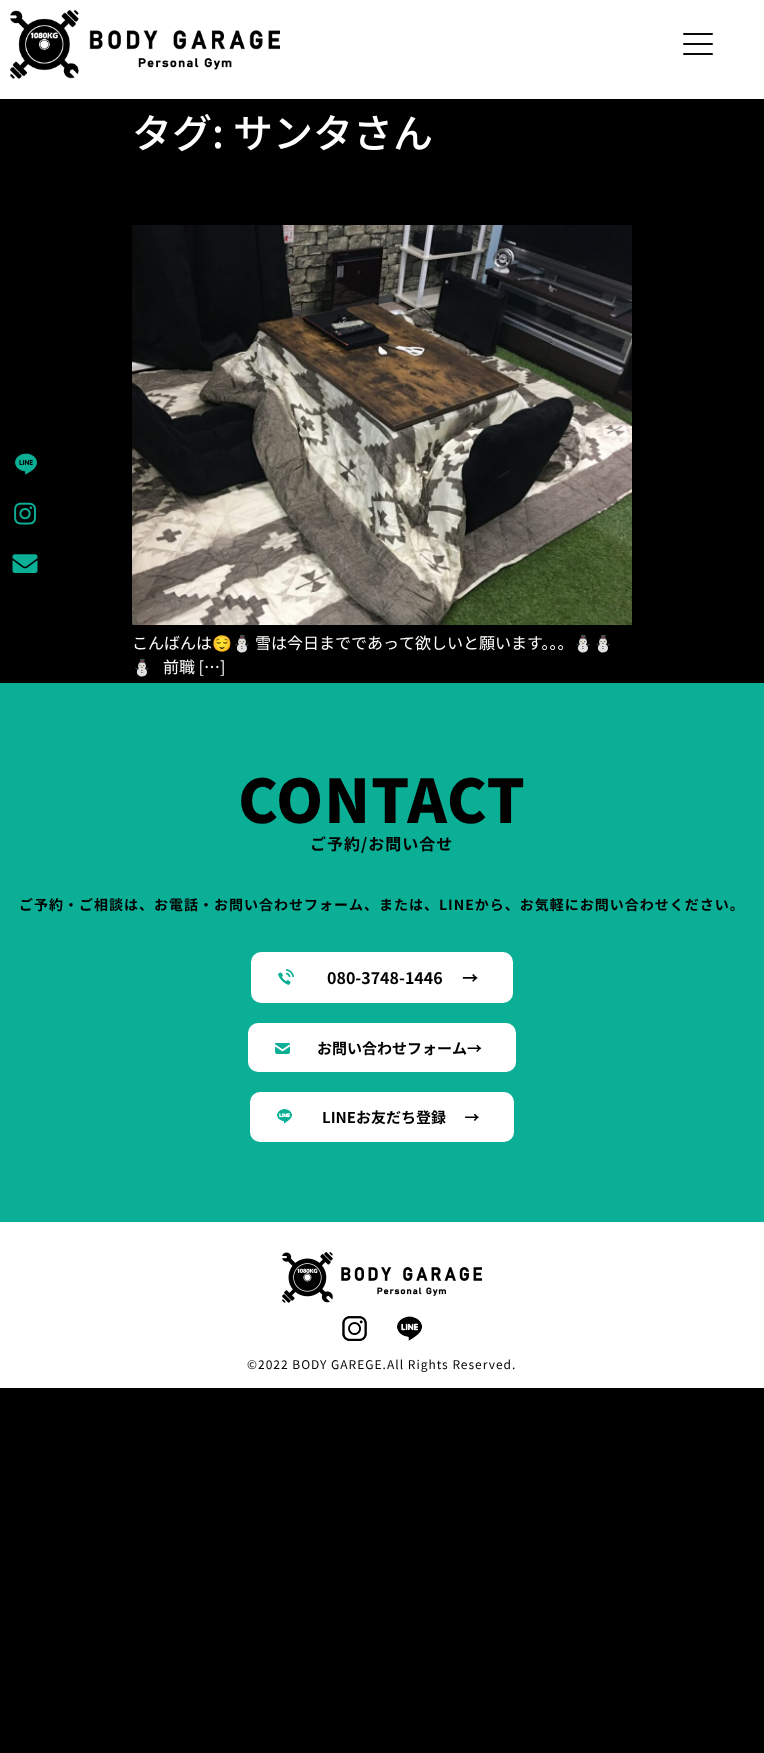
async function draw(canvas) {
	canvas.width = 764;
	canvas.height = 1753;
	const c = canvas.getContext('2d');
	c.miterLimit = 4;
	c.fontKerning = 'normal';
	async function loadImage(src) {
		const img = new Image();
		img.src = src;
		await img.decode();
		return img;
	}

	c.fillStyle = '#000';
	c.fillRect(0, 0, 764, 1753);
	c.fillStyle = '#fff';
	c.fillRect(0, 0, 764, 99);
	c.drawImage(await loadImage('img1.png'), 10, 10, 270, 69);
	c.drawImage(await loadImage('img2.png'), 15, 453, 22, 22);
	c.drawImage(await loadImage('img3.png'), 14, 502, 22, 23);
	c.drawImage(await loadImage('img4.png'), 12, 554, 26, 19);
	c.fillStyle = '#0a0a0a';
	c.beginPath();
	c.roundRect(683, 43, 30, 2, 1);
	c.fill();
	c.beginPath();
	c.roundRect(683, 33, 30, 2, 1);
	c.fill();
	c.beginPath();
	c.roundRect(683, 53, 30, 2, 1);
	c.fill();
	c.font = '500 40px Noto Sans JP';
	c.fillStyle = '#fff';
	c.fillText('タグ: サンタさん', 132, 148);
	c.drawImage(await loadImage('img5.png'), 132, 225, 500, 400);
	c.font = '16px Noto Sans JP';
	c.fillText('こんばんは', 132, 649);
	c.font = '16px Noto Color Emoji';
	c.fillText('😌⛄️', 212, 649);
	c.font = '16px Noto Sans JP';
	c.fillText('雪は今日までであって欲しいと願います。。。', 255, 649);
	c.font = '16px Noto Color Emoji';
	c.fillText('⛄️⛄️', 573, 649);
	c.fillText('⛄️', 132, 673);
	c.font = '16px Noto Sans JP';
	c.fillText('前職 […]', 163, 673);
	c.fillStyle = '#0aaf96';
	c.fillRect(0, 683, 764, 539);
	c.letterSpacing = '1px';
	c.font = '900 60px Noto Sans JP';
	c.fillStyle = '#000';
	c.fillText('CONTACT', 238, 823);
	c.font = 'bold 16px Noto Sans JP';
	c.fillText('ご予約/お問い合せ', 310, 850);
	c.font = 'bold 14px Noto Sans JP';
	c.fillText('ご予約・ご相談は、お電話・お問い合わせフォーム、または、LINEから、お気軽にお問い合わせください。', 19, 910);
	c.fillStyle = '#fff';
	c.beginPath();
	c.roundRect(251, 952, 262, 51, 10);
	c.fill();
	c.drawImage(await loadImage('img6.png'), 278, 969, 16, 16);
	c.letterSpacing = '0px';
	c.font = 'bold 16px Noto Sans JP';
	c.fillStyle = '#000';
	c.fillText('080-3748-1446　 →', 327, 984);
	c.fillStyle = '#fff';
	c.beginPath();
	c.roundRect(248, 1023, 268, 49, 10);
	c.fill();
	c.drawImage(await loadImage('img7.png'), 275, 1043, 15, 11);
	c.font = 'bold 15px Noto Sans JP';
	c.fillStyle = '#000';
	c.fillText('お問い合わせフォーム→', 317, 1054);
	c.fillStyle = '#fff';
	c.beginPath();
	c.roundRect(250, 1092, 264, 50, 10);
	c.fill();
	c.drawImage(await loadImage('img8.png'), 277, 1109, 15, 15);
	c.fillStyle = '#000';
	c.fillText('LINEお友だち登録　 →', 322, 1123);
	c.fillStyle = '#fff';
	c.fillRect(0, 1222, 764, 166);
	c.drawImage(await loadImage('img9.png'), 282, 1252, 200, 51);
	c.drawImage(await loadImage('img10.png'), 342, 1316, 25, 25);
	c.drawImage(await loadImage('img11.png'), 397, 1316, 25, 25);
	c.letterSpacing = '1px';
	c.font = '12px Noto Sans JP';
	c.fillStyle = '#000';
	c.fillText('©2022 BODY GAREGE.All Rights Reserved.', 247, 1369);
}

draw(document.querySelector('canvas'));
